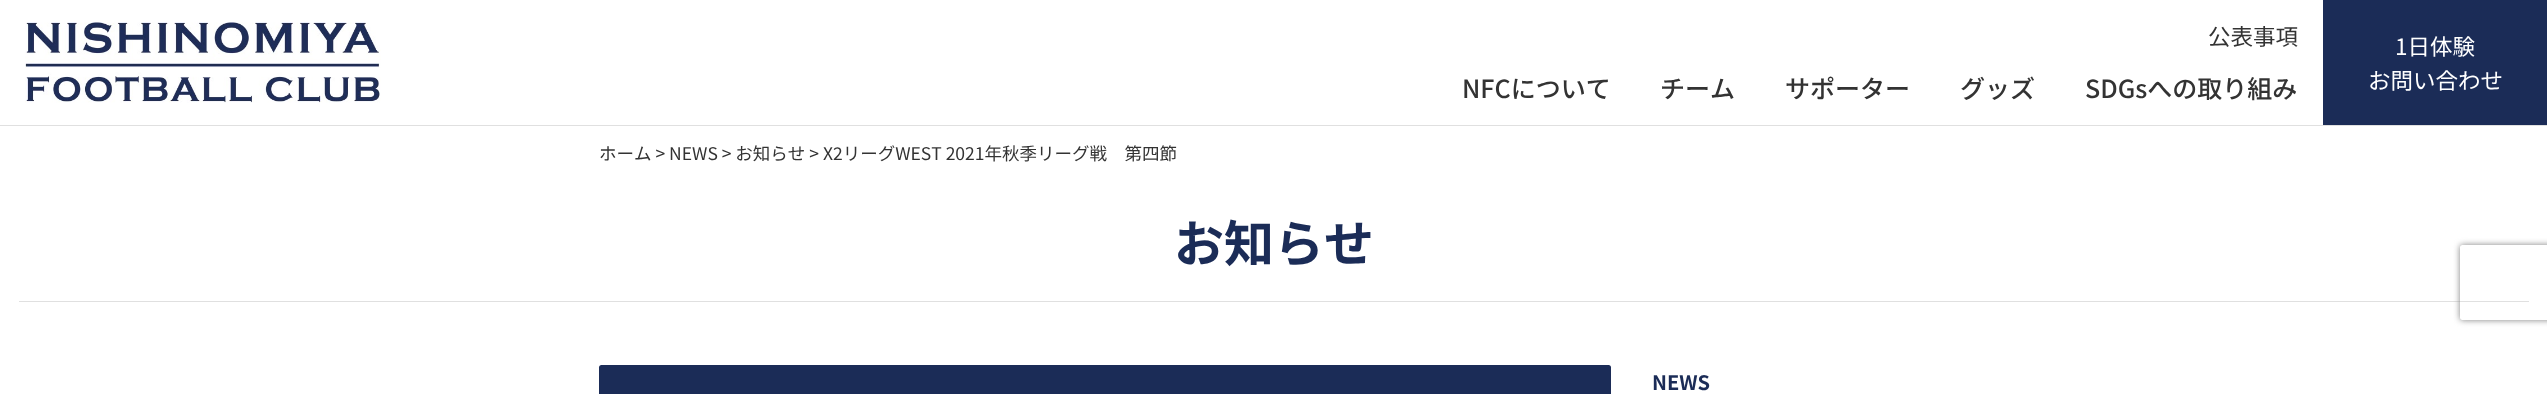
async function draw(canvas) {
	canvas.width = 2547;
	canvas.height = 394;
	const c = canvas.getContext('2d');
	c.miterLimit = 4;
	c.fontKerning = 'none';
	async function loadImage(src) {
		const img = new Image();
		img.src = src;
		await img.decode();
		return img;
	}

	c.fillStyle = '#fff';
	c.fillRect(0, 0, 2547, 394);
	c.fillStyle = '#e0e0e0';
	c.fillRect(0, 125, 2547, 1);
	c.drawImage(await loadImage('img1.png'), 25, 22, 356, 81);
	c.font = '22.5px Noto Sans JP';
	c.fillStyle = '#333';
	c.fillText('公表事項', 2208, 45);
	c.font = '500 25px Noto Sans JP';
	for (const [text, x, y] of [
		['NFCについて', 1462, 98],
		['チーム', 1660, 98],
		['サポーター', 1785, 98],
		['グッズ', 1960, 98],
		['SDGsへの取り組み', 2085, 98],
	]) {
		c.fillText(text, x, y);
	}
	c.fillStyle = '#1b2c57';
	c.fillRect(2323, 0, 224, 125);
	c.font = '22.5px Noto Sans JP';
	c.fillStyle = '#fff';
	c.fillText('1日体験', 2395, 55);
	c.fillText('お問い合わせ', 2368, 89);
	c.font = '17.5px Noto Sans JP';
	c.fillStyle = '#333';
	c.fillText('ホーム > NEWS > お知らせ > X2リーグWEST 2021年秋季リーグ戦　第四節', 599, 160);
	c.fillStyle = '#e0e0e0';
	c.fillRect(19, 301, 2510, 1);
	c.font = 'bold 50px Noto Sans JP';
	c.fillStyle = '#1b2c57';
	c.fillText('お知らせ', 1174, 262);
	c.beginPath();
	c.roundRect(599, 365, 1012, 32, 2.5);
	c.fill();
	c.font = 'bold 20px Noto Sans JP';
	c.fillText('NEWS', 1652, 390);
	c.save();
	c.beginPath();
	c.moveTo(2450, 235);
	c.lineTo(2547, 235);
	c.lineTo(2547, 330);
	c.lineTo(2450, 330);
	c.closePath();
	c.moveTo(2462.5, 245);
	c.lineTo(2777.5, 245);
	c.bezierCurveTo(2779, 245, 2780, 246, 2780, 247.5);
	c.lineTo(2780, 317.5);
	c.bezierCurveTo(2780, 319, 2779, 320, 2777.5, 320);
	c.lineTo(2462.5, 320);
	c.bezierCurveTo(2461, 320, 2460, 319, 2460, 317.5);
	c.lineTo(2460, 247.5);
	c.bezierCurveTo(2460, 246, 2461, 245, 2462.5, 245);
	c.closePath();
	c.clip('evenodd');
	c.fillStyle = '#808080';
	c.filter = 'blur(3px)';
	c.beginPath();
	c.roundRect(2460, 245, 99, 75, 2.5);
	c.fill();
	c.filter = 'none';
	c.restore();
}

draw(document.querySelector('canvas'));
